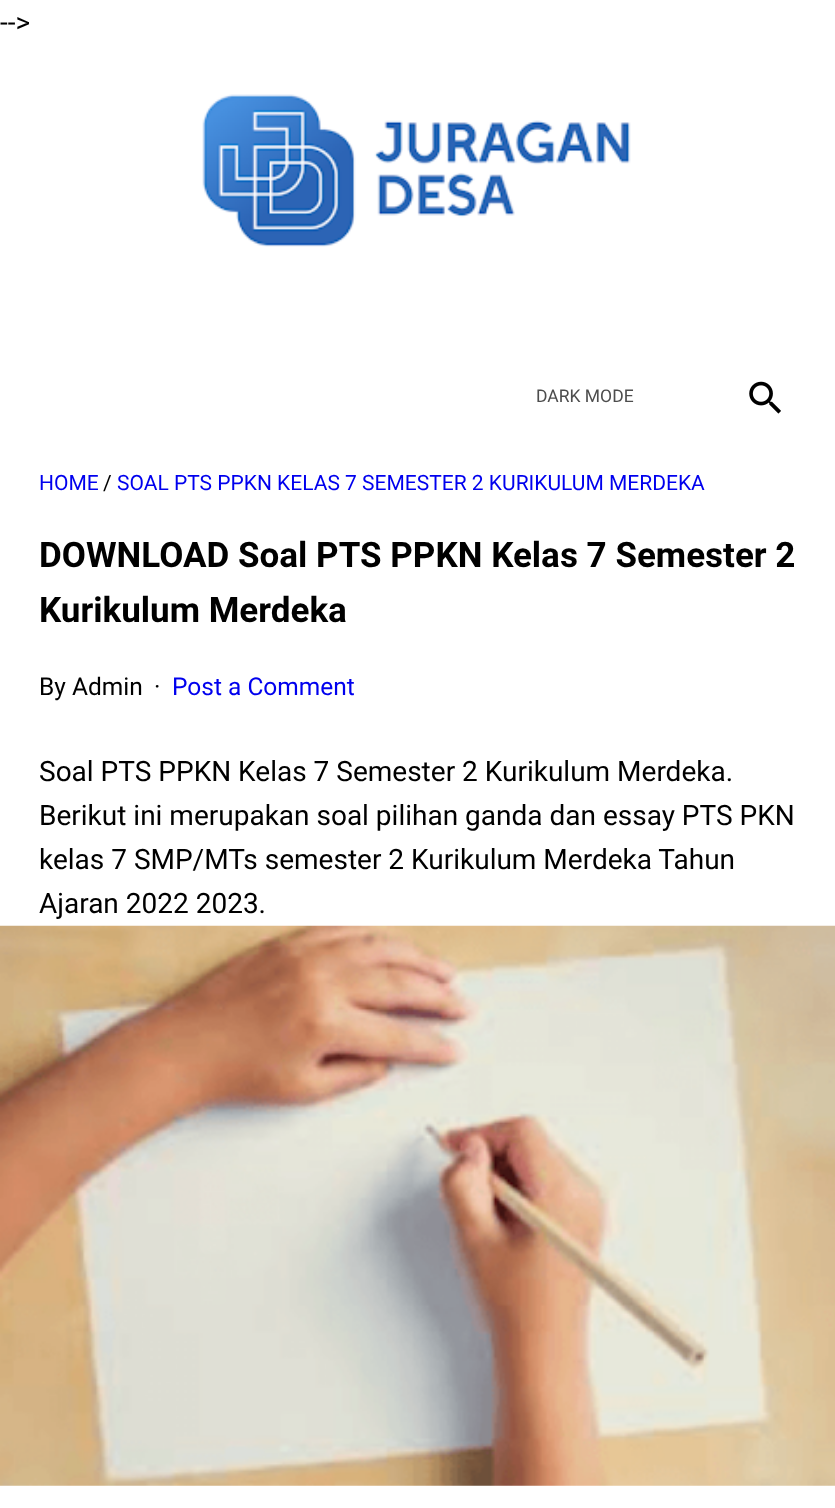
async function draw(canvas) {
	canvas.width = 835;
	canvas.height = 1508;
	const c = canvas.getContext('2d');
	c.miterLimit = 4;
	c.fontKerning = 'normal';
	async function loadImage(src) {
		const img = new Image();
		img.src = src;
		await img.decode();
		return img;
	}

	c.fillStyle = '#fff';
	c.fillRect(0, 0, 835, 1508);
	c.font = '28px Roboto';
	c.fillStyle = '#000';
	c.fillText('-->', 0, 32);
	c.drawImage(await loadImage('img1.png'), 202, 94, 429, 153);
	c.font = '17.5px Roboto';
	c.fillStyle = '#4d4d4d';
	c.fillText('DARK MODE', 536, 402);
	c.drawImage(await loadImage('img2.png'), 749, 381, 32, 33);
	c.font = '21px Roboto';
	c.fillStyle = '#00e';
	c.fillText('HOME', 39, 490);
	c.fillStyle = '#000';
	c.fillText('/', 103, 490);
	c.fillStyle = '#00e';
	c.fillText('SOAL PTS PPKN KELAS 7 SEMESTER 2 KURIKULUM MERDEKA', 117, 490);
	c.font = 'bold 35px Roboto';
	c.fillStyle = '#000';
	c.fillText('DOWNLOAD Soal PTS PPKN Kelas 7 Semester 2', 39, 567);
	c.fillText('Kurikulum Merdeka', 39, 622);
	c.font = '24.5px Roboto';
	c.fillText('By Admin', 39, 695);
	c.fillText('·', 154, 695);
	c.fillStyle = '#00e';
	c.fillText('Post a Comment', 172, 695);
	c.font = '28px Roboto';
	c.fillStyle = '#000';
	for (const [text, x, y] of [
		['Soal PTS PPKN Kelas 7 Semester 2 Kurikulum Merdeka.', 39, 781],
		['Berikut ini merupakan soal pilihan ganda dan essay PTS PKN', 39, 825],
		['kelas 7 SMP/MTs semester 2 Kurikulum Merdeka Tahun', 39, 869],
		['Ajaran 2022 2023.', 39, 913],
	]) {
		c.fillText(text, x, y);
	}
	c.drawImage(await loadImage('img3.png'), 0, 925, 835, 561);
}

draw(document.querySelector('canvas'));
